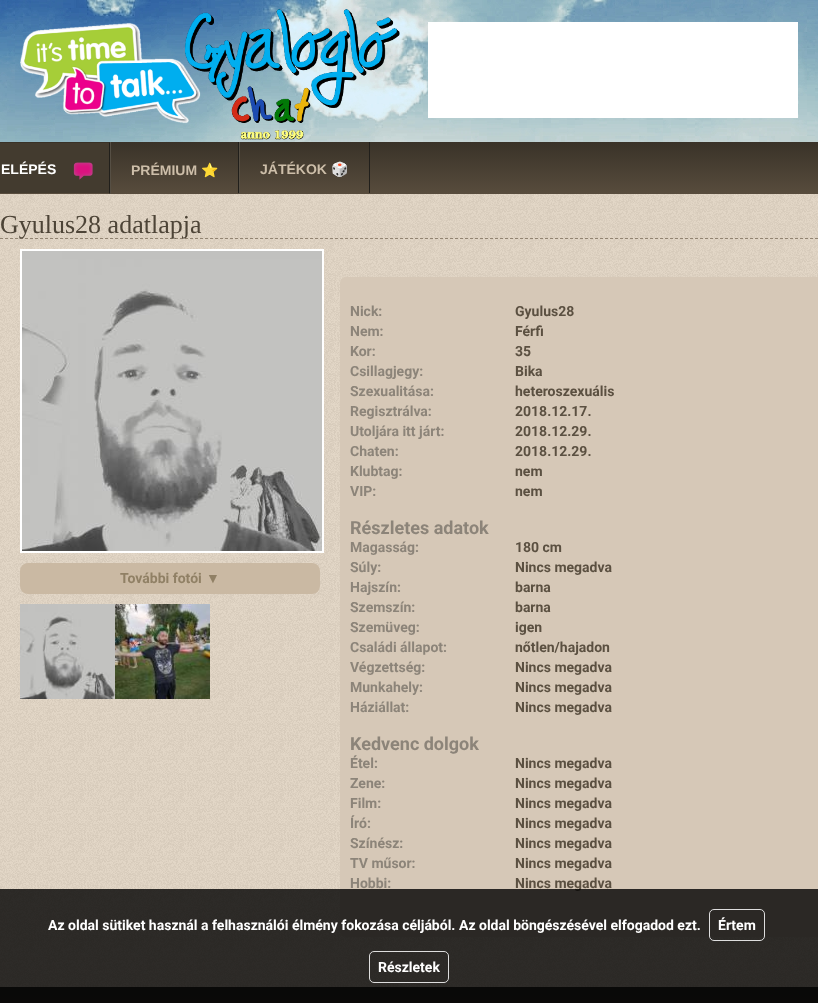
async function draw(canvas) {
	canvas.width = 818;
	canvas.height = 1003;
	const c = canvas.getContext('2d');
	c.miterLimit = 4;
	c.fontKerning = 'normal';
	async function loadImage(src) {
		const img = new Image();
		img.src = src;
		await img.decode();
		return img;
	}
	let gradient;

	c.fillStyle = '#fff';
	c.fillRect(0, 0, 818, 1003);
	c.drawImage(await loadImage('img1.png'), 0, 0, 818, 142);
	c.drawImage(await loadImage('img2.png'), 20, 9, 380, 131);
	c.fillRect(428, 22, 370, 96);
	c.fillStyle = '#e4d7c6';
	c.fillRect(0, 194, 818, 793);
	c.drawImage(await loadImage('img3.png'), 0, 194, 818, 793);
	gradient = c.createLinearGradient(409, 142, 409, 194);
	gradient.addColorStop(0, '#393228');
	gradient.addColorStop(1, '#584c3d');
	c.fillStyle = gradient;
	c.fillRect(111, 142, 707, 52);
	c.fillStyle = '#433b2f';
	c.fillRect(0, 142, 110, 52);
	c.drawImage(await loadImage('img4.png'), 73, 162, 20, 18);
	c.fillStyle = '#393228';
	c.beginPath();
	c.moveTo(-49, 142);
	c.bezierCurveTo(-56, 142, -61, 147, -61, 154);
	c.bezierCurveTo(-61, 148, -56, 143, -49, 143);
	c.lineTo(109, 143);
	c.lineTo(110, 142);
	c.closePath();
	c.fill();
	c.fillStyle = '#211f1b';
	c.beginPath();
	c.moveTo(110, 142);
	c.lineTo(110, 194);
	c.lineTo(109, 193);
	c.lineTo(109, 143);
	c.closePath();
	c.fill();
	c.fillStyle = '#584c3d';
	c.beginPath();
	c.moveTo(110, 194);
	c.lineTo(109, 193);
	c.lineTo(-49, 193);
	c.bezierCurveTo(-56, 193, -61, 188, -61, 182);
	c.bezierCurveTo(-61, 189, -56, 194, -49, 194);
	c.closePath();
	c.fill();
	c.font = 'bold 14px Liberation Sans';
	c.fillStyle = '#fff';
	c.fillText('ELÉPÉS', 1, 174);
	for (const [x, y, w, h, color] of [
		[238, 142, 1, 52, '#211f1b'],
		[110, 193, 129, 1, '#584c3d'],
		[110, 142, 1, 52, '#564f44'],
	]) {
		c.fillStyle = color;
		c.fillRect(x, y, w, h);
	}
	c.fillStyle = '#cdbea9';
	c.fillText('PRÉMIUM', 131, 175);
	c.font = 'bold 14px Noto Color Emoji';
	c.fillText('⭐', 201, 175);
	for (const [x, y, w, h, color] of [
		[369, 142, 1, 52, '#211f1b'],
		[369, 193, 1, 1, '#584c3d'],
		[239, 142, 1, 52, '#564f44'],
	]) {
		c.fillStyle = color;
		c.fillRect(x, y, w, h);
	}
	c.font = 'bold 14px Liberation Sans';
	c.fillStyle = '#cdbea9';
	c.fillText('JÁTÉKOK', 260, 174);
	c.font = 'bold 14px Noto Color Emoji';
	c.fillText('🎲', 331, 174);
	c.beginPath();
	c.moveTo(0, 238.5);
	c.lineTo(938, 238.5);
	c.strokeStyle = '#928472';
	c.setLineDash([3, 2]);
	c.stroke();
	c.font = '26px Liberation Serif';
	c.fillStyle = '#4d4437';
	c.fillText('Gyulus28 adatlapja', 0, 233);
	c.fillStyle = '#fff';
	c.fillRect(20, 249, 304, 304);
	c.drawImage(await loadImage('img5.png'), 22, 251, 300, 300);
	c.fillStyle = '#cab9a3';
	c.beginPath();
	c.roundRect(20, 563, 300, 31, 8);
	c.fill();
	c.font = 'bold 14px Roboto';
	c.fillStyle = '#908065';
	c.fillText('További fotói', 120, 583);
	c.font = 'bold 14px Liberation Sans';
	c.fillText('▼', 206, 583);
	c.drawImage(await loadImage('img6.png'), 20, 604, 95, 95);
	c.drawImage(await loadImage('img7.png'), 115, 604, 95, 95);
	c.fillStyle = '#d6c8b7';
	c.beginPath();
	c.roundRect(340, 277, 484, 660, 6);
	c.fill();
	c.font = 'bold 14px Roboto';
	c.fillStyle = '#8c8479';
	c.fillText('Nick:', 350, 316);
	c.fillStyle = '#5b5041';
	c.fillText('Gyulus28', 515, 316);
	c.fillStyle = '#8c8479';
	c.fillText('Nem:', 350, 336);
	c.fillStyle = '#5b5041';
	c.fillText('Férfi', 515, 336);
	c.fillStyle = '#8c8479';
	c.fillText('Kor:', 350, 356);
	c.fillStyle = '#5b5041';
	c.fillText('35', 515, 356);
	c.fillStyle = '#8c8479';
	c.fillText('Csillagjegy:', 350, 376);
	c.fillStyle = '#5b5041';
	c.fillText('Bika', 515, 376);
	c.fillStyle = '#8c8479';
	c.fillText('Szexualitása:', 350, 396);
	c.fillStyle = '#5b5041';
	c.fillText('heteroszexuális', 515, 396);
	c.fillStyle = '#8c8479';
	c.fillText('Regisztrálva:', 350, 416);
	c.fillStyle = '#5b5041';
	c.fillText('2018.12.17.', 515, 416);
	c.fillStyle = '#8c8479';
	c.fillText('Utoljára itt járt:', 350, 436);
	c.fillStyle = '#5b5041';
	c.fillText('2018.12.29.', 515, 436);
	c.fillStyle = '#8c8479';
	c.fillText('Chaten:', 350, 456);
	c.fillStyle = '#5b5041';
	c.fillText('2018.12.29.', 515, 456);
	c.fillStyle = '#8c8479';
	c.fillText('Klubtag:', 350, 476);
	c.fillStyle = '#5b5041';
	c.fillText('nem', 515, 476);
	c.fillStyle = '#8c8479';
	c.fillText('VIP:', 350, 496);
	c.fillStyle = '#5b5041';
	c.fillText('nem', 515, 496);
	c.font = 'bold 18px Roboto';
	c.fillStyle = '#8c8479';
	c.fillText('Részletes adatok', 350, 534);
	c.font = 'bold 14px Roboto';
	c.fillText('Magasság:', 350, 552);
	c.fillStyle = '#5b5041';
	c.fillText('180 cm', 515, 552);
	c.fillStyle = '#8c8479';
	c.fillText('Súly:', 350, 572);
	c.fillStyle = '#5b5041';
	c.fillText('Nincs megadva', 515, 572);
	c.fillStyle = '#8c8479';
	c.fillText('Hajszín:', 350, 592);
	c.fillStyle = '#5b5041';
	c.fillText('barna', 515, 592);
	c.fillStyle = '#8c8479';
	c.fillText('Szemszín:', 350, 612);
	c.fillStyle = '#5b5041';
	c.fillText('barna', 515, 612);
	c.fillStyle = '#8c8479';
	c.fillText('Szemüveg:', 350, 632);
	c.fillStyle = '#5b5041';
	c.fillText('igen', 515, 632);
	c.fillStyle = '#8c8479';
	c.fillText('Családi állapot:', 350, 652);
	c.fillStyle = '#5b5041';
	c.fillText('nőtlen/hajadon', 515, 652);
	c.fillStyle = '#8c8479';
	c.fillText('Végzettség:', 350, 672);
	c.fillStyle = '#5b5041';
	c.fillText('Nincs megadva', 515, 672);
	c.fillStyle = '#8c8479';
	c.fillText('Munkahely:', 350, 692);
	c.fillStyle = '#5b5041';
	c.fillText('Nincs megadva', 515, 692);
	c.fillStyle = '#8c8479';
	c.fillText('Háziállat:', 350, 712);
	c.fillStyle = '#5b5041';
	c.fillText('Nincs megadva', 515, 712);
	c.font = 'bold 18px Roboto';
	c.fillStyle = '#8c8479';
	c.fillText('Kedvenc dolgok', 350, 750);
	c.font = 'bold 14px Roboto';
	c.fillText('Étel:', 350, 768);
	c.fillStyle = '#5b5041';
	c.fillText('Nincs megadva', 515, 768);
	c.fillStyle = '#8c8479';
	c.fillText('Zene:', 350, 788);
	c.fillStyle = '#5b5041';
	c.fillText('Nincs megadva', 515, 788);
	c.fillStyle = '#8c8479';
	c.fillText('Film:', 350, 808);
	c.fillStyle = '#5b5041';
	c.fillText('Nincs megadva', 515, 808);
	c.fillStyle = '#8c8479';
	c.fillText('Író:', 350, 828);
	c.fillStyle = '#5b5041';
	c.fillText('Nincs megadva', 515, 828);
	c.fillStyle = '#8c8479';
	c.fillText('Színész:', 350, 848);
	c.fillStyle = '#5b5041';
	c.fillText('Nincs megadva', 515, 848);
	c.fillStyle = '#8c8479';
	c.fillText('TV műsor:', 350, 868);
	c.fillStyle = '#5b5041';
	c.fillText('Nincs megadva', 515, 868);
	c.fillStyle = '#8c8479';
	c.fillText('Hobbi:', 350, 888);
	c.fillStyle = '#5b5041';
	c.fillText('Nincs megadva', 515, 888);
	gradient = c.createLinearGradient(409, 987, 409, 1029);
	gradient.addColorStop(0, '#302d28');
	gradient.addColorStop(1, '#36312d');
	c.fillStyle = gradient;
	c.fillRect(0, 987, 818, 16);
	c.fillStyle = '#000000cc';
	c.fillRect(0, 889, 818, 114);
	c.fillStyle = '#fff';
	c.fillText('Az oldal sütiket használ a felhasználói élmény fokozása céljából. Az oldal böngészésével elfogadod ezt.', 48, 930);
	c.beginPath();
	c.roundRect(709.5, 909.5, 55, 31, 4.5);
	c.strokeStyle = '#dedede';
	c.setLineDash([]);
	c.stroke();
	c.fillText('Értem', 718, 930);
	c.beginPath();
	c.roundRect(369.5, 951.5, 79, 31, 4.5);
	c.stroke();
	c.fillText('Részletek', 378, 972);
}

draw(document.querySelector('canvas'));
